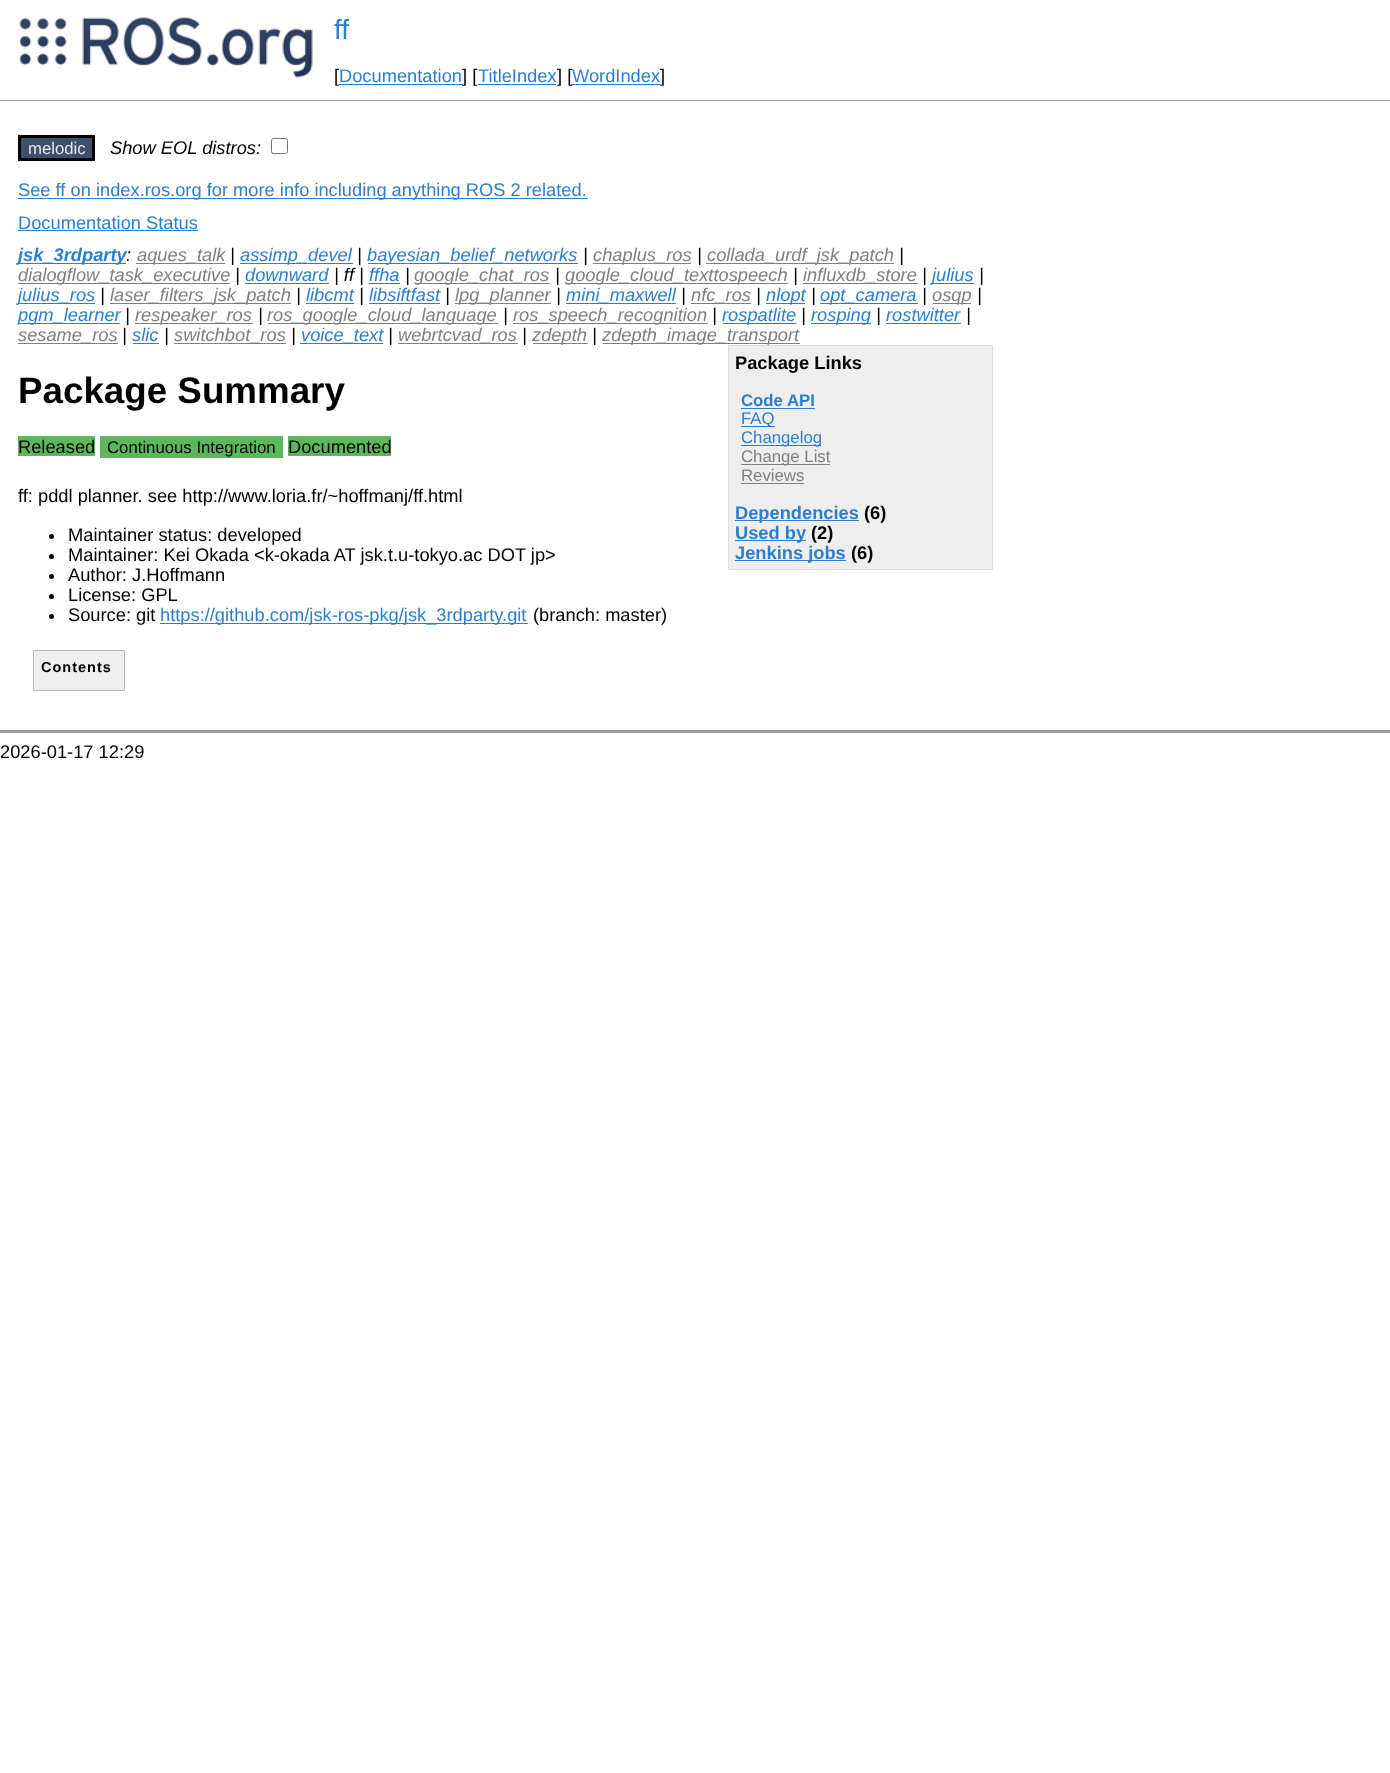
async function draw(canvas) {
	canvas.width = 1390;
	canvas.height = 1773;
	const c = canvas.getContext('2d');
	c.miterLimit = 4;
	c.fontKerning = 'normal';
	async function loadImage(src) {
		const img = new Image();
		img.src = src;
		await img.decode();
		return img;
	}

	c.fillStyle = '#fff';
	c.fillRect(0, 0, 1390, 1773);
	c.drawImage(await loadImage('img1.png'), 19, 17, 294, 61);
	c.font = '28px Liberation Sans';
	c.fillStyle = '#2b7fcf';
	c.fillText('ff', 334, 39);
	c.font = '18.3px Liberation Sans';
	c.fillStyle = '#000';
	c.fillText('[', 334, 82);
	c.fillStyle = '#2b7fcf';
	c.fillText('Documentation', 339, 82);
	c.fillRect(339, 84, 124, 1);
	c.fillStyle = '#000';
	c.fillText('] [', 462, 82);
	c.fillStyle = '#2b7fcf';
	c.fillText('TitleIndex', 478, 82);
	c.fillRect(478, 84, 78, 1);
	c.fillStyle = '#000';
	c.fillText('] [', 557, 82);
	c.fillStyle = '#2b7fcf';
	c.fillText('WordIndex', 572, 82);
	c.fillRect(571, 84, 89, 1);
	c.fillStyle = '#000';
	c.fillText(']', 660, 82);
	c.fillStyle = '#9c9c9c';
	c.fillRect(0, 100, 1390, 1);
	c.fillStyle = '#3e4f6e';
	c.beginPath();
	c.rect(19.5, 136.5, 74, 23);
	c.fill();
	c.strokeStyle = '#000';
	c.lineWidth = 3;
	c.stroke();
	c.font = '16.75px Liberation Sans';
	c.fillStyle = '#e6e6e6';
	c.fillText('melodic', 28, 154);
	c.font = 'italic 18.3px Liberation Sans';
	c.fillStyle = '#000';
	c.fillText('Show EOL distros:', 110, 154);
	c.beginPath();
	c.roundRect(271.5, 138.5, 16, 15, 2);
	c.strokeStyle = '#767676';
	c.lineWidth = 1;
	c.stroke();
	c.fillStyle = '#2b7fcf';
	c.fillRect(18, 198, 570, 1);
	c.font = '18.3px Liberation Sans';
	c.fillText('See ff on index.ros.org for more info including anything ROS 2 related.', 18, 196);
	c.fillText('Documentation Status', 18, 229);
	c.fillRect(18, 230, 180, 1);
	c.fillRect(18, 263, 108, 1);
	c.font = 'italic bold 18.3px Liberation Sans';
	c.fillText('jsk_3rdparty', 18, 261);
	c.font = 'italic 18.3px Liberation Sans';
	c.fillStyle = '#000';
	c.fillText(':', 126, 261);
	c.fillStyle = '#808080';
	c.fillRect(136, 263, 89, 1);
	c.fillText('aques_talk', 137, 261);
	c.fillStyle = '#000';
	c.fillText('|', 230, 261);
	c.fillStyle = '#2b7fcf';
	c.fillRect(240, 263, 113, 1);
	c.fillText('assimp_devel', 240, 261);
	c.fillStyle = '#000';
	c.fillText('|', 357, 261);
	c.fillStyle = '#2b7fcf';
	c.fillRect(368, 263, 210, 1);
	c.fillText('bayesian_belief_networks', 367, 261);
	c.fillStyle = '#000';
	c.fillText('|', 583, 261);
	c.fillStyle = '#808080';
	c.fillRect(593, 263, 98, 1);
	c.fillText('chaplus_ros', 593, 261);
	c.fillStyle = '#000';
	c.fillText('|', 697, 261);
	c.fillStyle = '#808080';
	c.fillRect(706, 263, 188, 1);
	c.fillText('collada_urdf_jsk_patch', 707, 261);
	c.fillStyle = '#000';
	c.fillText('|', 899, 261);
	c.fillStyle = '#808080';
	c.fillRect(18, 283, 212, 1);
	c.fillText('dialogflow_task_executive', 18, 281);
	c.fillStyle = '#000';
	c.fillText('|', 235, 281);
	c.fillStyle = '#2b7fcf';
	c.fillText('downward', 245, 281);
	c.fillRect(245, 283, 84, 1);
	c.fillStyle = '#000';
	c.fillText('| ff |', 334, 281);
	c.fillStyle = '#2b7fcf';
	c.fillText('ffha', 369, 281);
	c.fillRect(369, 283, 31, 1);
	c.fillStyle = '#000';
	c.fillText('|', 405, 281);
	c.fillStyle = '#808080';
	c.fillRect(415, 283, 135, 1);
	c.fillText('google_chat_ros', 414, 281);
	c.fillStyle = '#000';
	c.fillText('|', 555, 281);
	c.fillStyle = '#808080';
	c.fillRect(565, 283, 223, 1);
	c.fillText('google_cloud_texttospeech', 565, 281);
	c.fillStyle = '#000';
	c.fillText('|', 793, 281);
	c.fillStyle = '#808080';
	c.fillRect(803, 283, 115, 1);
	c.fillText('influxdb_store', 803, 281);
	c.fillStyle = '#000';
	c.fillText('|', 922, 281);
	c.fillStyle = '#2b7fcf';
	c.fillRect(931, 283, 43, 1);
	c.fillText('julius', 932, 281);
	c.fillStyle = '#000';
	c.fillText('|', 979, 281);
	c.fillStyle = '#2b7fcf';
	c.fillRect(18, 303, 77, 1);
	c.fillText('julius_ros', 18, 301);
	c.fillStyle = '#000';
	c.fillText('|', 100, 301);
	c.fillStyle = '#808080';
	c.fillRect(110, 303, 181, 1);
	c.fillText('laser_filters_jsk_patch', 110, 301);
	c.fillStyle = '#000';
	c.fillText('|', 296, 301);
	c.fillStyle = '#2b7fcf';
	c.fillText('libcmt', 306, 301);
	c.fillRect(306, 303, 48, 1);
	c.fillStyle = '#000';
	c.fillText('|', 359, 301);
	c.fillStyle = '#2b7fcf';
	c.fillText('libsiftfast', 369, 301);
	c.fillRect(369, 303, 71, 1);
	c.fillStyle = '#000';
	c.fillText('|', 445, 301);
	c.fillStyle = '#808080';
	c.fillRect(455, 303, 96, 1);
	c.fillText('lpg_planner', 455, 301);
	c.fillStyle = '#000';
	c.fillText('|', 556, 301);
	c.fillStyle = '#2b7fcf';
	c.fillRect(566, 303, 110, 1);
	c.fillText('mini_maxwell', 566, 301);
	c.fillStyle = '#000';
	c.fillText('|', 681, 301);
	c.fillStyle = '#808080';
	c.fillRect(691, 303, 60, 1);
	c.fillText('nfc_ros', 691, 301);
	c.fillStyle = '#000';
	c.fillText('|', 756, 301);
	c.fillStyle = '#2b7fcf';
	c.fillRect(766, 303, 39, 1);
	c.fillText('nlopt', 766, 301);
	c.fillStyle = '#000';
	c.fillText('|', 811, 301);
	c.fillStyle = '#2b7fcf';
	c.fillRect(820, 303, 98, 1);
	c.fillText('opt_camera', 820, 301);
	c.fillStyle = '#000';
	c.fillText('|', 922, 301);
	c.fillStyle = '#808080';
	c.fillRect(933, 303, 38, 1);
	c.fillText('osqp', 932, 301);
	c.fillStyle = '#000';
	c.fillText('|', 977, 301);
	c.fillStyle = '#2b7fcf';
	c.fillRect(18, 323, 102, 1);
	c.fillText('pgm_learner', 18, 321);
	c.fillStyle = '#000';
	c.fillText('|', 125, 321);
	c.fillStyle = '#808080';
	c.fillRect(135, 323, 118, 1);
	c.fillText('respeaker_ros', 135, 321);
	c.fillStyle = '#000';
	c.fillText('|', 258, 321);
	c.fillStyle = '#808080';
	c.fillRect(268, 323, 230, 1);
	c.fillText('ros_google_cloud_language', 267, 321);
	c.fillStyle = '#000';
	c.fillText('|', 503, 321);
	c.fillStyle = '#808080';
	c.fillRect(513, 323, 195, 1);
	c.fillText('ros_speech_recognition', 513, 321);
	c.fillStyle = '#000';
	c.fillText('|', 712, 321);
	c.fillStyle = '#2b7fcf';
	c.fillRect(723, 323, 73, 1);
	c.fillText('rospatlite', 722, 321);
	c.fillStyle = '#000';
	c.fillText('|', 801, 321);
	c.fillStyle = '#2b7fcf';
	c.fillRect(811, 323, 60, 1);
	c.fillText('rosping', 811, 321);
	c.fillStyle = '#000';
	c.fillText('|', 876, 321);
	c.fillStyle = '#2b7fcf';
	c.fillText('rostwitter', 886, 321);
	c.fillRect(886, 323, 75, 1);
	c.fillStyle = '#000';
	c.fillText('|', 966, 321);
	c.fillStyle = '#808080';
	c.fillRect(18, 343, 100, 1);
	c.fillText('sesame_ros', 18, 341);
	c.fillStyle = '#000';
	c.fillText('|', 122, 341);
	c.fillStyle = '#2b7fcf';
	c.fillText('slic', 132, 341);
	c.fillRect(133, 343, 26, 1);
	c.fillStyle = '#000';
	c.fillText('|', 164, 341);
	c.fillStyle = '#808080';
	c.fillRect(174, 343, 112, 1);
	c.fillText('switchbot_ros', 174, 341);
	c.fillStyle = '#000';
	c.fillText('|', 291, 341);
	c.fillStyle = '#2b7fcf';
	c.fillRect(300, 343, 83, 1);
	c.fillText('voice_text', 301, 341);
	c.fillStyle = '#000';
	c.fillText('|', 388, 341);
	c.fillStyle = '#808080';
	c.fillRect(398, 343, 120, 1);
	c.fillText('webrtcvad_ros', 398, 341);
	c.fillStyle = '#000';
	c.fillText('|', 522, 341);
	c.fillStyle = '#808080';
	c.fillRect(533, 343, 55, 1);
	c.fillText('zdepth', 532, 341);
	c.fillStyle = '#000';
	c.fillText('|', 592, 341);
	c.fillStyle = '#808080';
	c.fillRect(603, 343, 197, 1);
	c.fillText('zdepth_image_transport', 602, 341);
	c.font = 'bold 36.75px Liberation Sans';
	c.fillStyle = '#000';
	c.fillText('Package Summary', 18, 403);
	c.fillStyle = '#eee';
	c.beginPath();
	c.rect(728.5, 345.5, 264, 224);
	c.fill();
	c.strokeStyle = '#ddd';
	c.stroke();
	c.font = 'bold 18.3px Liberation Sans';
	c.fillStyle = '#000';
	c.fillText('Package Links', 735, 369);
	c.font = 'bold 16.75px Liberation Sans';
	c.fillStyle = '#2b7fcf';
	c.fillText('Code API', 741, 406);
	c.fillRect(741, 408, 74, 1);
	c.fillRect(741, 426, 34, 1);
	c.font = '16.75px Liberation Sans';
	c.fillText('FAQ', 741, 424);
	c.fillRect(741, 445, 80, 1);
	c.fillText('Changelog', 741, 443);
	c.fillStyle = '#808080';
	c.fillRect(741, 464, 89, 1);
	c.fillText('Change List', 741, 462);
	c.fillText('Reviews', 741, 481);
	c.fillRect(741, 483, 63, 1);
	c.fillStyle = '#2b7fcf';
	c.fillRect(735, 520, 124, 1);
	c.font = 'bold 18.3px Liberation Sans';
	c.fillText('Dependencies', 735, 519);
	c.fillStyle = '#000';
	c.fillText('(6)', 864, 519);
	c.fillStyle = '#2b7fcf';
	c.fillRect(735, 540, 71, 1);
	c.fillText('Used by', 735, 539);
	c.fillStyle = '#000';
	c.fillText('(2)', 811, 539);
	c.fillStyle = '#2b7fcf';
	c.fillRect(735, 560, 111, 1);
	c.fillText('Jenkins jobs', 735, 559);
	c.fillStyle = '#000';
	c.fillText('(6)', 851, 559);
	c.fillStyle = '#5cb85c';
	c.fillRect(18, 436, 77, 20);
	c.font = '18.3px Liberation Sans';
	c.fillStyle = '#000';
	c.fillText('Released', 18, 453);
	c.fillStyle = '#5cb85c';
	c.fillRect(100, 436, 183, 22);
	c.font = '16.75px Liberation Sans';
	c.fillStyle = '#000';
	c.fillText('Continuous Integration', 107, 453);
	c.fillStyle = '#5cb85c';
	c.fillRect(288, 436, 103, 20);
	c.font = '18.3px Liberation Sans';
	c.fillStyle = '#000';
	c.fillText('Documented', 288, 453);
	c.fillText('ff: pddl planner. see http://www.loria.fr/~hoffmanj/ff.html', 18, 502);
	c.beginPath();
	c.arc(51.5, 536.5, 2.5, 0, 2 * Math.PI);
	c.fill();
	c.fillText('Maintainer status: developed', 68, 541);
	c.beginPath();
	c.arc(51.5, 556.5, 2.5, 0, 2 * Math.PI);
	c.fill();
	c.fillText('Maintainer: Kei Okada <k-okada AT jsk.t.u-tokyo.ac DOT jp>', 68, 561);
	c.beginPath();
	c.arc(51.5, 576.5, 2.5, 0, 2 * Math.PI);
	c.fill();
	c.fillText('Author: J.Hoffmann', 68, 581);
	c.beginPath();
	c.arc(51.5, 596.5, 2.5, 0, 2 * Math.PI);
	c.fill();
	c.fillText('License: GPL', 68, 601);
	c.beginPath();
	c.arc(51.5, 616.5, 2.5, 0, 2 * Math.PI);
	c.fill();
	c.fillText('Source: git', 68, 621);
	c.fillStyle = '#2b7fcf';
	c.fillRect(160, 623, 368, 1);
	c.fillText('https://github.com/jsk-ros-pkg/jsk_3rdparty.git', 160, 621);
	c.fillStyle = '#000';
	c.fillText('(branch: master)', 533, 621);
	c.fillStyle = '#eee';
	c.beginPath();
	c.rect(33.5, 650.5, 91, 40);
	c.fill();
	c.strokeStyle = '#bbb';
	c.stroke();
	c.letterSpacing = '1px';
	c.font = 'bold 14.5px Liberation Sans';
	c.fillStyle = '#000';
	c.fillText('Contents', 41, 672);
	c.fillStyle = '#9c9c9c';
	c.fillRect(0, 730, 1390, 3);
	c.letterSpacing = '0px';
	c.font = '18.3px Liberation Sans';
	c.fillStyle = '#000';
	c.fillText('2026-01-17 12:29', 0, 758);
}

draw(document.querySelector('canvas'));
